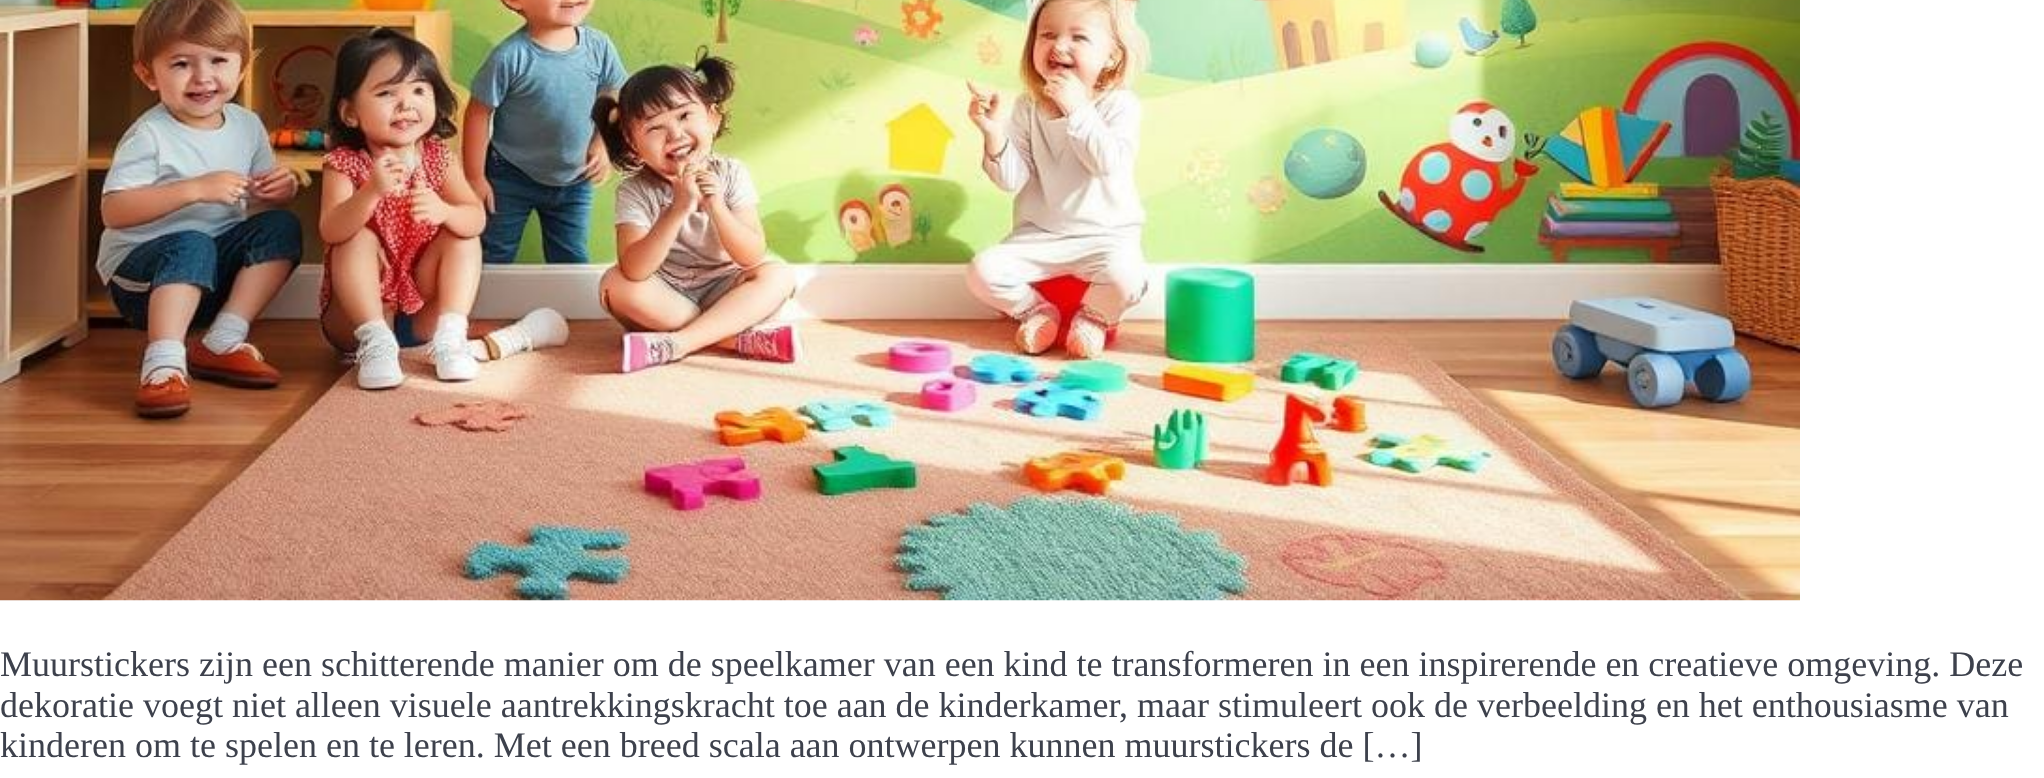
async function draw(canvas) {
	canvas.width = 2044;
	canvas.height = 778;
	const c = canvas.getContext('2d');
	c.miterLimit = 4;
	c.fontKerning = 'normal';
	async function loadImage(src) {
		const img = new Image();
		img.src = src;
		await img.decode();
		return img;
	}

	c.fillStyle = '#fff';
	c.fillRect(0, 0, 2044, 778);
	c.drawImage(await loadImage('img1.png'), 0, 0, 1800, 601);
	c.font = '36px Liberation Serif';
	c.fillStyle = '#3d414c';
	for (const [text, x, y] of [
		['Muurstickers zijn een schitterende manier om de speelkamer van een kind te transformeren in een inspirerende en creatieve omgeving. Deze', 0, 676],
		['dekoratie voegt niet alleen visuele aantrekkingskracht toe aan de kinderkamer, maar stimuleert ook de verbeelding en het enthousiasme van', 0, 717],
		['kinderen om te spelen en te leren. Met een breed scala aan ontwerpen kunnen muurstickers de […]', 0, 757],
	]) {
		c.fillText(text, x, y);
	}
}

draw(document.querySelector('canvas'));
